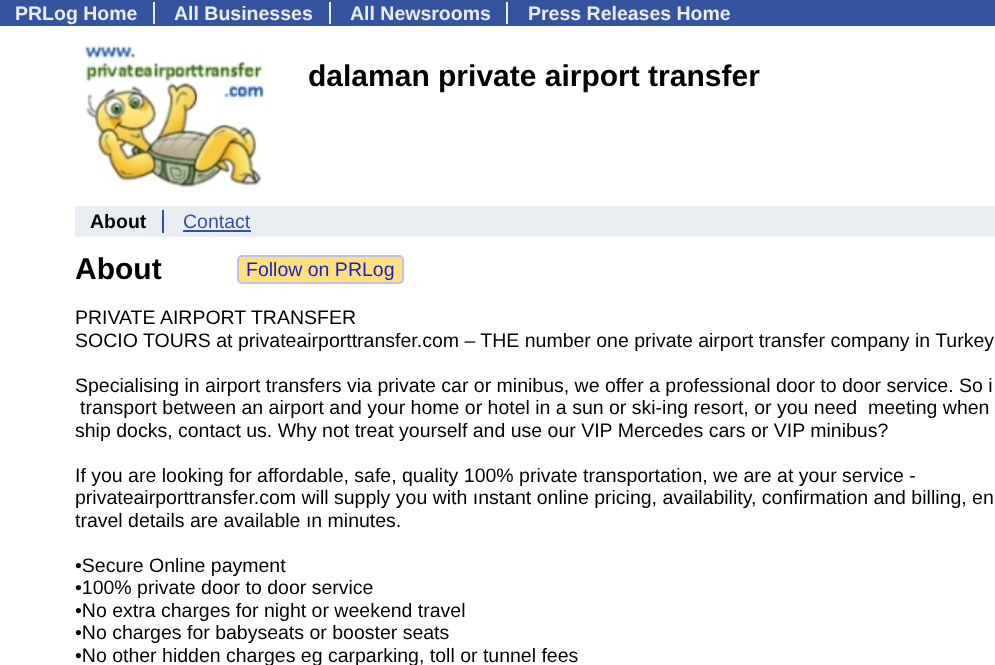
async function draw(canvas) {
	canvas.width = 995;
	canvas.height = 665;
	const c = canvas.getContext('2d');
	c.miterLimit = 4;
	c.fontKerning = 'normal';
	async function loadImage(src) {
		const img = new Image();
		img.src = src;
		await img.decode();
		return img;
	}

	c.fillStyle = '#fff';
	c.fillRect(0, 0, 995, 665);
	c.fillStyle = '#3454a0';
	c.fillRect(0, 0, 995, 26);
	c.fillStyle = '#e9edf2';
	c.fillRect(153, 2, 2, 22);
	c.font = 'bold 19.5px Liberation Sans';
	c.fillText('PRLog Home', 15, 20);
	c.fillRect(329, 2, 2, 22);
	c.fillText('All Businesses', 174, 20);
	c.fillRect(506, 2, 2, 22);
	c.fillText('All Newsrooms', 350, 20);
	c.fillText('Press Releases Home', 528, 20);
	c.drawImage(await loadImage('img1.png'), 83, 41, 183, 147);
	c.font = 'bold 30px Liberation Sans';
	c.fillStyle = '#000';
	c.fillText('dalaman private airport transfer', 308, 86);
	c.fillStyle = '#e9edf2';
	c.fillRect(75, 206, 920, 31);
	c.fillStyle = '#3454a0';
	c.fillRect(162, 210, 2, 23);
	c.font = 'bold 19.5px Liberation Sans';
	c.fillStyle = '#000';
	c.fillText('About', 90, 228);
	c.font = '19.5px Liberation Sans';
	c.fillStyle = '#3454a0';
	c.fillText('Contact', 183, 228);
	c.fillRect(183, 230, 68, 2);
	c.font = 'bold 30px Liberation Sans';
	c.fillStyle = '#000';
	c.fillText('About', 75, 279);
	c.fillStyle = '#ffe080';
	c.beginPath();
	c.roundRect(238, 256, 165, 27, 4);
	c.fill();
	c.strokeStyle = '#c0c0e0';
	c.lineWidth = 2;
	c.stroke();
	c.font = '19.5px Liberation Sans';
	c.fillStyle = '#2020c0';
	c.fillText('Follow on PRLog', 246, 276);
	c.fillStyle = '#000';
	for (const [text, x, y] of [
		['PRIVATE AIRPORT TRANSFER', 75, 324],
		['SOCIO TOURS at privateairporttransfer.com – THE number one private airport transfer company in Turkey', 75, 347],
		['Specialising in airport transfers via private car or minibus, we offer a professional door to door service. So i', 75, 392],
		['transport between an airport and your home or hotel in a sun or ski-ing resort, or you need  meeting when', 80, 414],
		['ship docks, contact us. Why not treat yourself and use our VIP Mercedes cars or VIP minibus?', 75, 437],
		['If you are looking for affordable, safe, quality 100% private transportation, we are at your service -', 75, 482],
		['privateairporttransfer.com will supply you with ınstant online pricing, availability, confirmation and billing, en', 75, 504],
		['travel details are available ın minutes.', 75, 527],
		['•Secure Online payment', 75, 572],
		['•100% private door to door service', 75, 594],
		['•No extra charges for night or weekend travel', 75, 617],
		['•No charges for babyseats or booster seats', 75, 639],
		['•No other hidden charges eg carparking, toll or tunnel fees', 75, 662],
	]) {
		c.fillText(text, x, y);
	}
}

draw(document.querySelector('canvas'));
